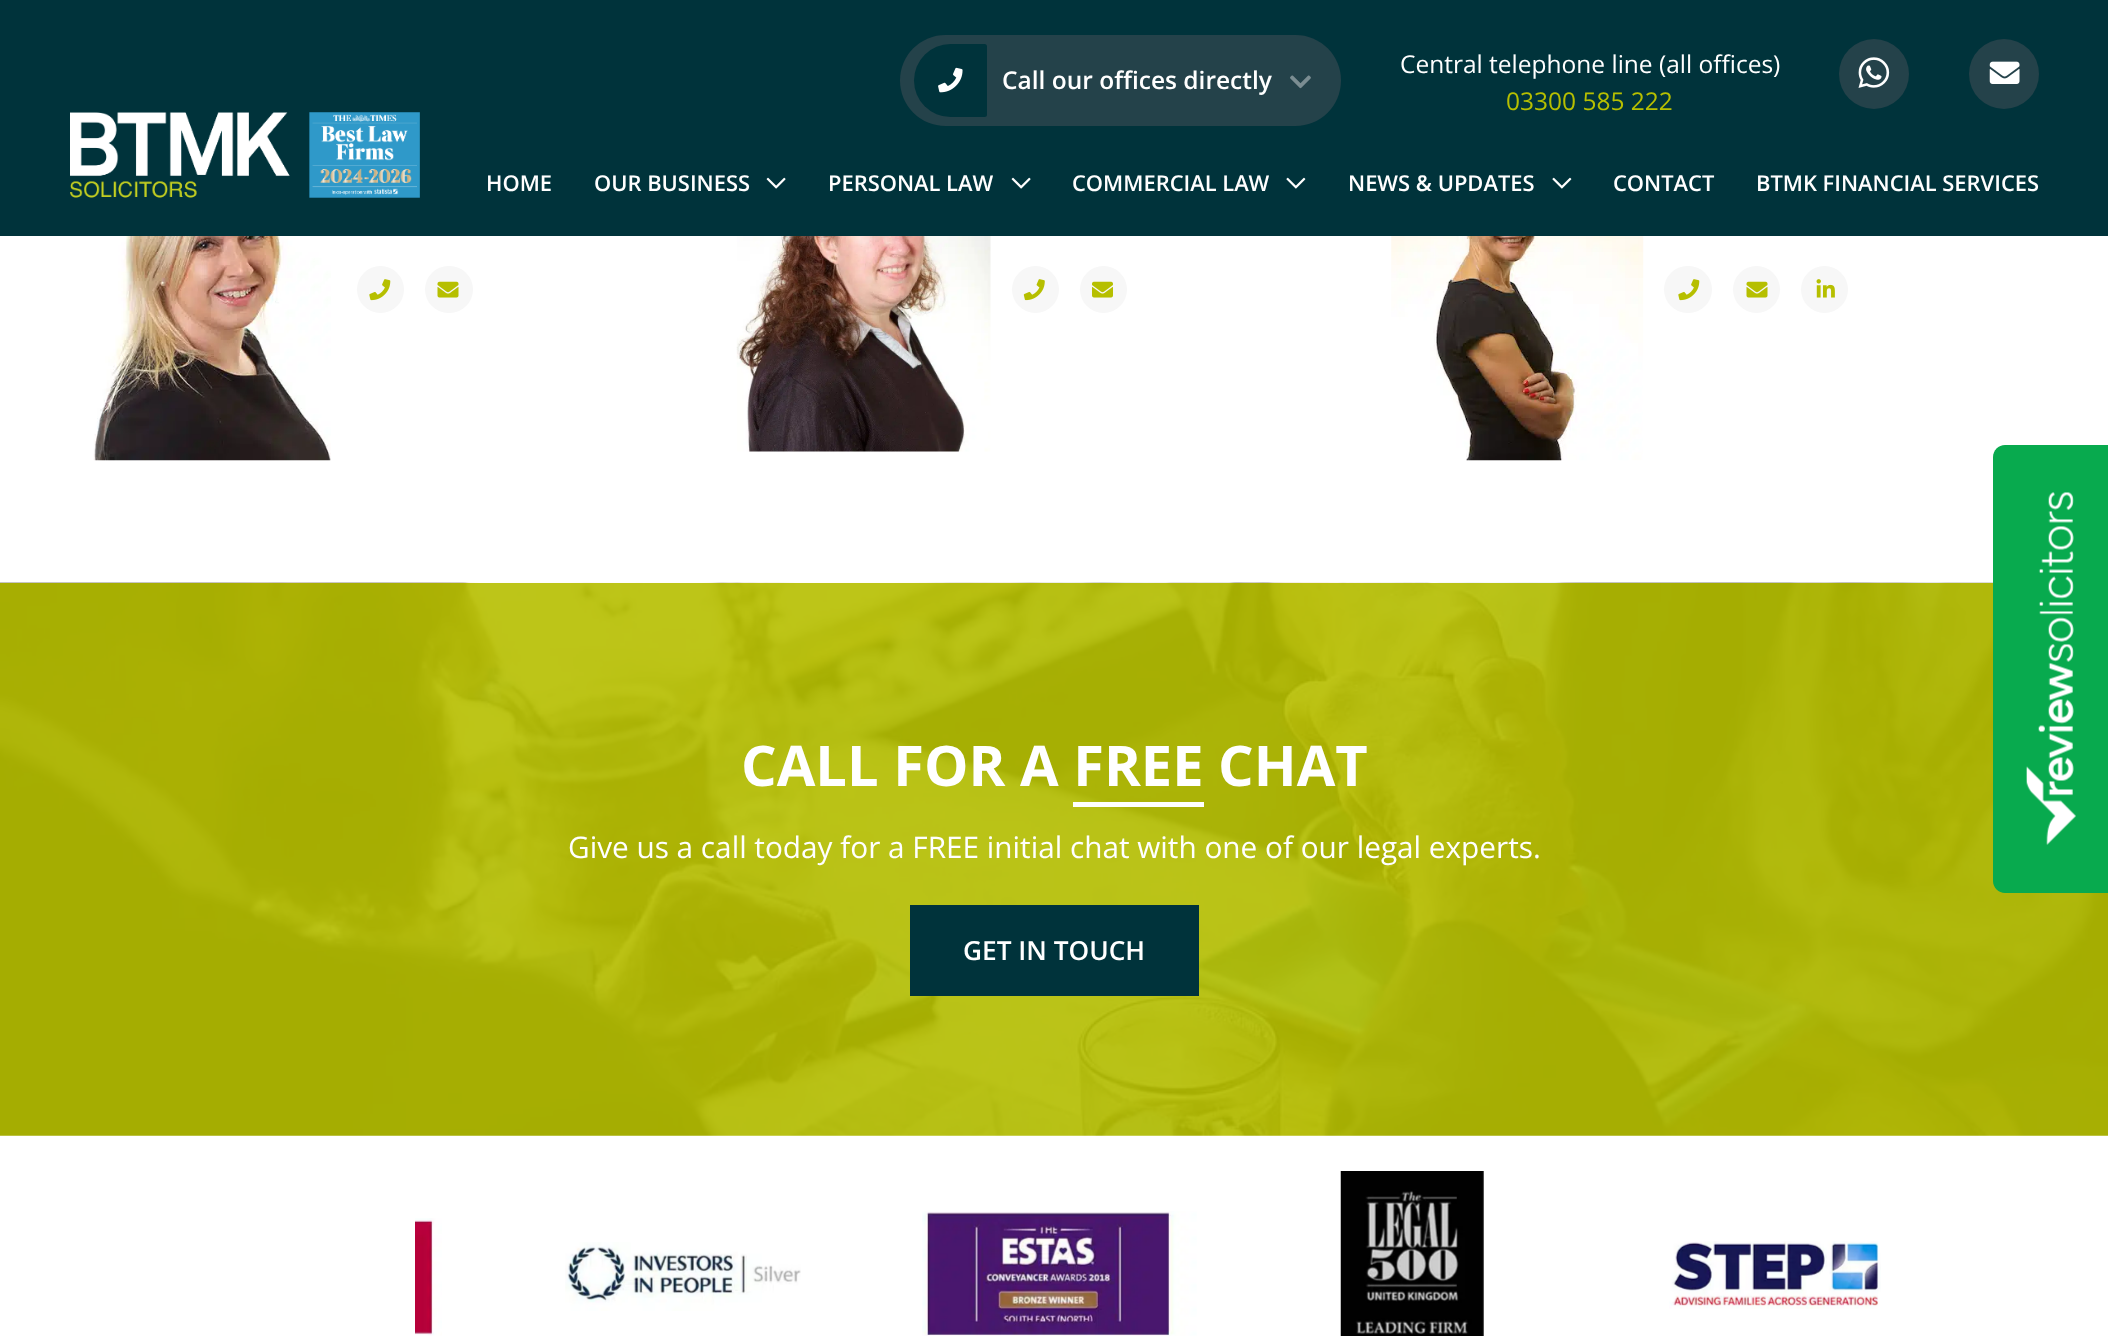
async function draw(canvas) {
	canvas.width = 2108;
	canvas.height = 1336;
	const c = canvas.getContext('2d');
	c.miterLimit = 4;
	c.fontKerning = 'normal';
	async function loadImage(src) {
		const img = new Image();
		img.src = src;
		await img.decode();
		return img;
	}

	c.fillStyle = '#fff';
	c.fillRect(0, 0, 2108, 1336);
	c.fillStyle = '#00333b';
	c.fillRect(0, 0, 2108, 236);
	c.fillStyle = '#24424a';
	c.beginPath();
	c.roundRect(900, 35, 441, 91, 45.5);
	c.fill();
	c.fillStyle = '#00333b';
	c.beginPath();
	c.roundRect(914, 44, 73, 73, [36.5, 2.5, 2.5, 36.5]);
	c.fill();
	c.drawImage(await loadImage('img1.png'), 938, 67, 25, 26);
	c.font = '600 24.5px Open Sans';
	c.fillStyle = '#fff';
	c.fillText('Call our offices directly', 1002, 89);
	c.drawImage(await loadImage('img2.png'), 1290, 75, 21, 14);
	c.font = '24.5px Open Sans';
	c.fillText('Central telephone line (all offices)', 1400, 73);
	c.fillStyle = '#b6bf00';
	c.fillText('03300 585 222', 1506, 110);
	c.fillStyle = '#24424a';
	c.beginPath();
	c.arc(1874, 74, 35, 0, 2 * Math.PI);
	c.fill();
	c.drawImage(await loadImage('img3.png'), 1858, 57, 32, 31);
	c.beginPath();
	c.arc(2004, 74, 35, 0, 2 * Math.PI);
	c.fill();
	c.drawImage(await loadImage('img4.png'), 1989, 61, 31, 23);
	c.drawImage(await loadImage('img5.png'), 70, 112, 350, 86);
	c.font = '600 21.9px Open Sans';
	c.fillStyle = '#fff';
	c.fillText('HOME', 486, 191);
	c.fillText('OUR BUSINESS', 594, 191);
	c.drawImage(await loadImage('img6.png'), 766, 177, 20, 12);
	c.fillText('PERSONAL LAW', 828, 191);
	c.drawImage(await loadImage('img6.png'), 1011, 177, 20, 12);
	c.fillText('COMMERCIAL LAW', 1072, 191);
	c.drawImage(await loadImage('img7.png'), 1286, 177, 20, 12);
	c.fillText('NEWS & UPDATES', 1348, 191);
	c.drawImage(await loadImage('img7.png'), 1552, 177, 20, 12);
	c.fillText('CONTACT', 1613, 191);
	c.fillText('BTMK FINANCIAL SERVICES', 1756, 191);
	c.drawImage(await loadImage('img8.png'), 93, 236, 238, 225);
	c.fillStyle = '#f7f7f7';
	c.beginPath();
	c.arc(380.5, 289.5, 23.5, 0, 2 * Math.PI);
	c.fill();
	c.drawImage(await loadImage('img9.png'), 369, 279, 22, 22);
	c.beginPath();
	c.roundRect(425, 266, 48, 47, 23.5);
	c.fill();
	c.drawImage(await loadImage('img10.png'), 437, 281, 22, 17);
	c.drawImage(await loadImage('img11.png'), 736, 236, 255, 216);
	c.beginPath();
	c.arc(1035.5, 289.5, 23.5, 0, 2 * Math.PI);
	c.fill();
	c.drawImage(await loadImage('img12.png'), 1023, 279, 22, 22);
	c.beginPath();
	c.arc(1103.5, 289.5, 23.5, 0, 2 * Math.PI);
	c.fill();
	c.drawImage(await loadImage('img13.png'), 1092, 281, 21, 17);
	c.drawImage(await loadImage('img14.png'), 1391, 236, 253, 225);
	c.beginPath();
	c.roundRect(1664, 266, 48, 47, 23.5);
	c.fill();
	c.drawImage(await loadImage('img9.png'), 1678, 279, 22, 22);
	c.beginPath();
	c.arc(1756.5, 289.5, 23.5, 0, 2 * Math.PI);
	c.fill();
	c.drawImage(await loadImage('img10.png'), 1746, 281, 22, 17);
	c.beginPath();
	c.arc(1824.5, 289.5, 23.5, 0, 2 * Math.PI);
	c.fill();
	c.drawImage(await loadImage('img15.png'), 1816, 279, 19, 19);
	c.drawImage(await loadImage('img16.png'), 0, 582, 2108, 554);
	c.font = 'bold 56px Open Sans';
	c.fillStyle = '#fff';
	c.fillText('CALL FOR A FREE CHAT', 741, 786);
	c.fillRect(1073, 802, 131, 5);
	c.font = '29.75px Open Sans';
	c.fillText('Give us a call today for a FREE initial chat with one of our legal experts.', 568, 858);
	c.fillStyle = '#00333b';
	c.fillRect(910, 905, 289, 91);
	c.font = '600 26.25px Open Sans';
	c.fillStyle = '#fff';
	c.fillText('GET IN TOUCH', 963, 960);
	c.fillStyle = '#08aa4e';
	c.beginPath();
	c.moveTo(2005, 445);
	c.lineTo(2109, 445);
	c.lineTo(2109, 893);
	c.lineTo(2005, 893);
	c.bezierCurveTo(1998.5, 893, 1993, 887.5, 1993, 881);
	c.lineTo(1993, 457);
	c.bezierCurveTo(1993, 450.5, 1998.5, 445, 2005, 445);
	c.closePath();
	c.fill();
	c.drawImage(await loadImage('img17.png'), 2026, 492, 50, 353);
	c.drawImage(await loadImage('img18.png'), 415, 1218, 27, 118);
	c.drawImage(await loadImage('img19.png'), 565, 1242, 236, 69);
	c.drawImage(await loadImage('img20.png'), 922, 1211, 275, 125);
	c.drawImage(await loadImage('img21.png'), 1340, 1171, 144, 165);
	c.drawImage(await loadImage('img22.png'), 1669, 1241, 212, 68);
}

draw(document.querySelector('canvas'));
